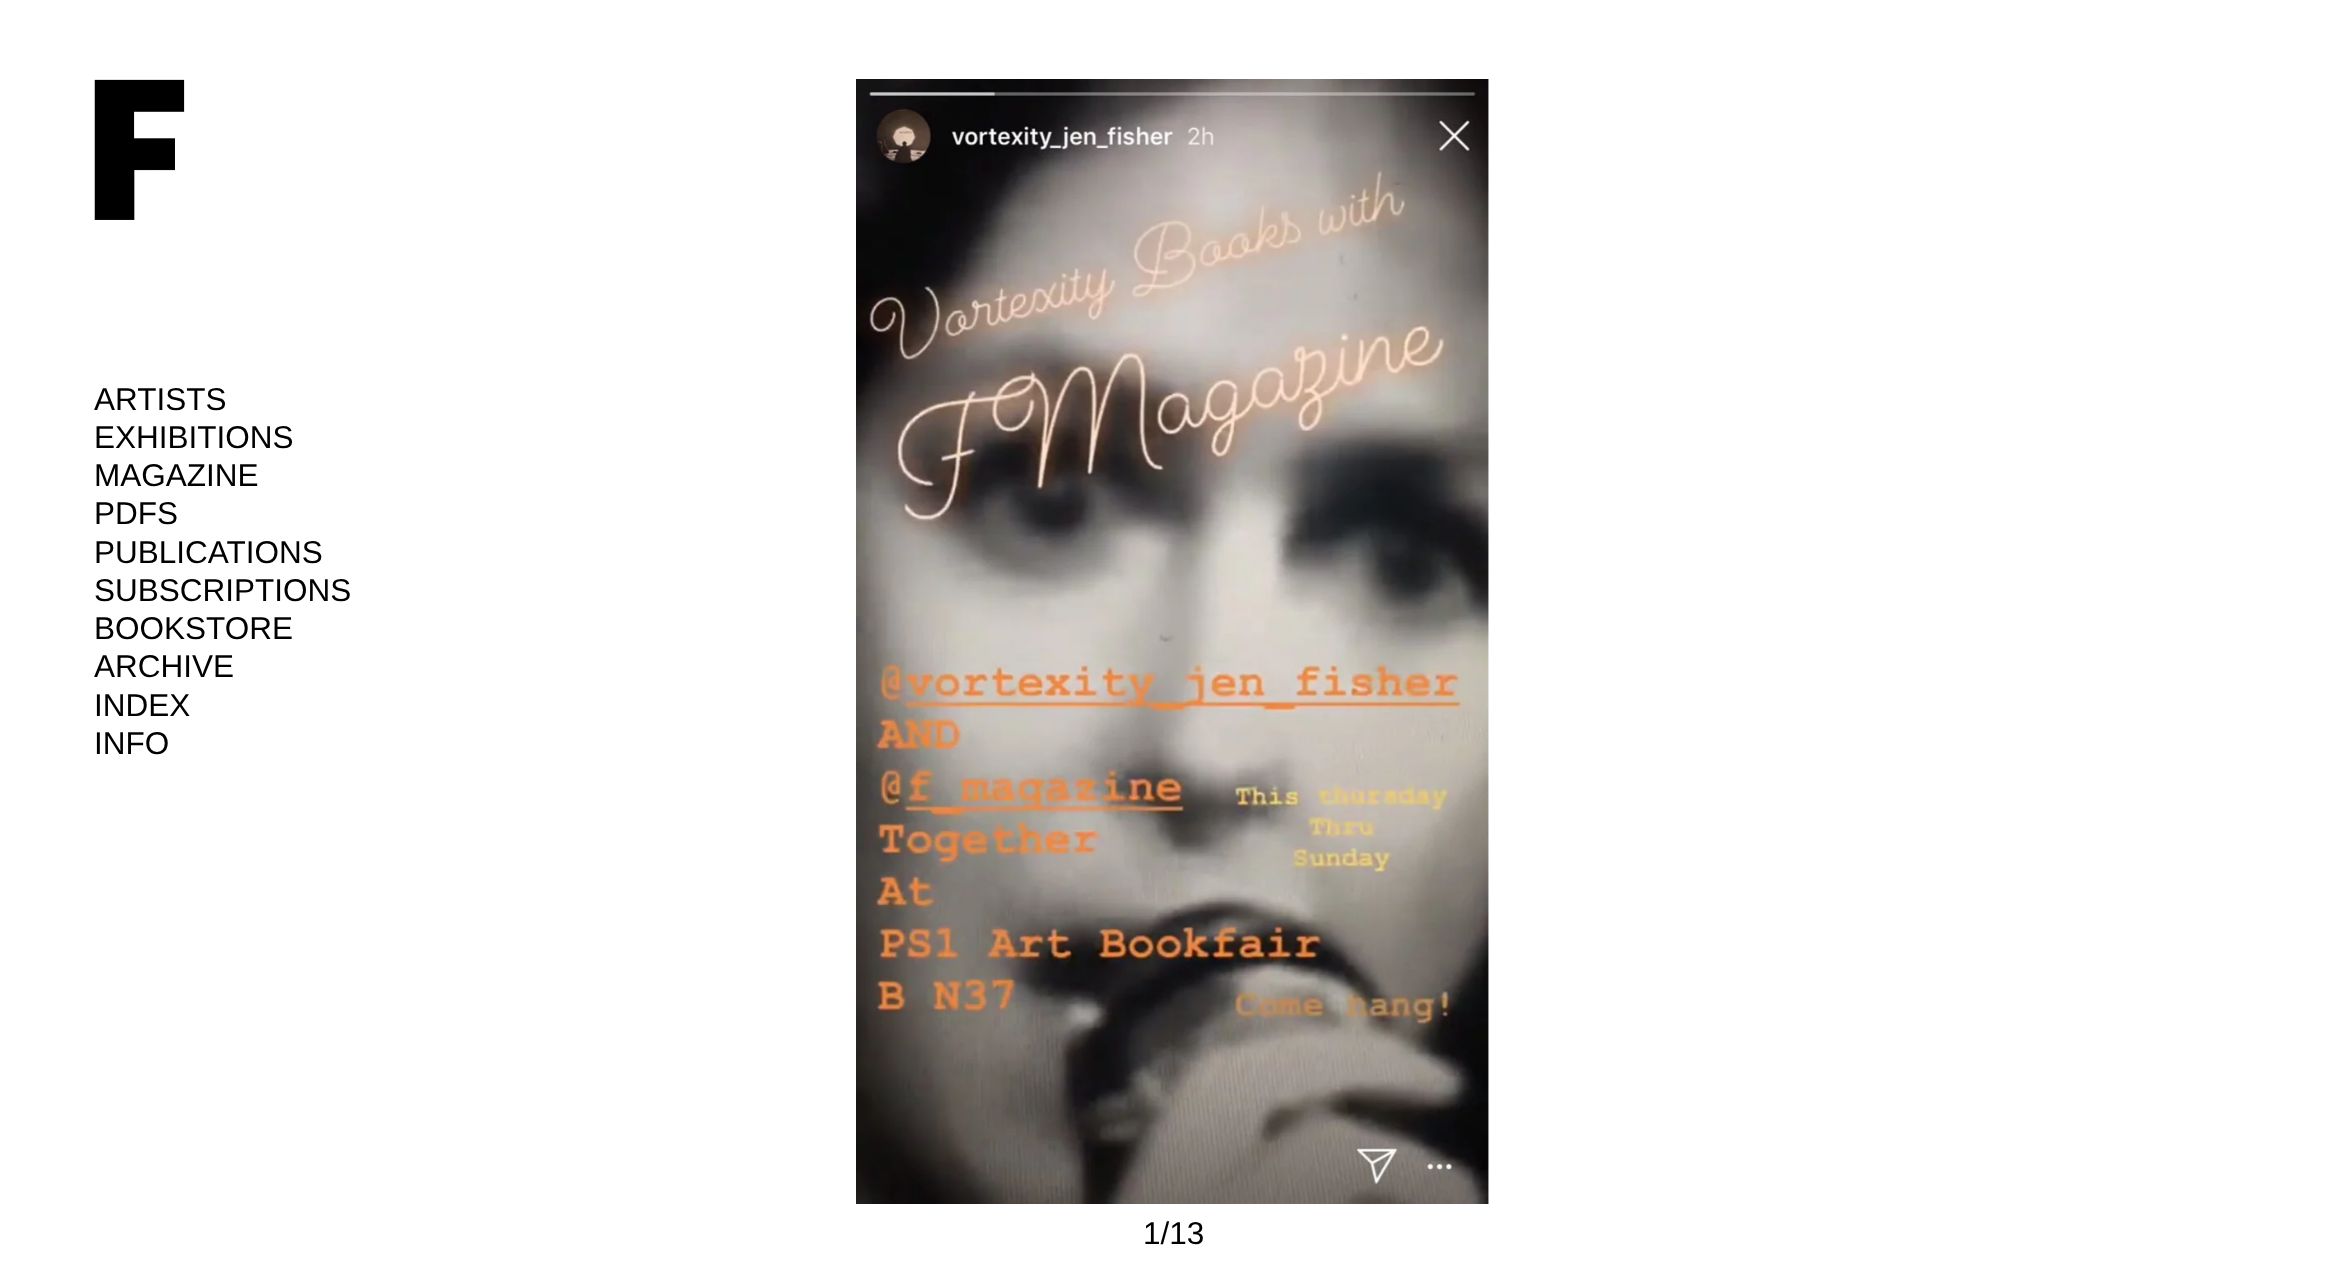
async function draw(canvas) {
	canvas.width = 2346;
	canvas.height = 1269;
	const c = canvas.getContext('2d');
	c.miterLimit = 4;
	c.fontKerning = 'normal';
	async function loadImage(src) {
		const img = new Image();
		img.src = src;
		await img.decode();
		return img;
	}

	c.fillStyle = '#fff';
	c.fillRect(0, 0, 2346, 1269);
	c.drawImage(await loadImage('img1.png'), 94, 79, 91, 141);
	c.font = '31.5px Liberation Sans';
	c.fillStyle = '#000';
	for (const [text, x, y] of [
		['ARTISTS', 94, 410],
		['EXHIBITIONS', 94, 448],
		['MAGAZINE', 94, 486],
		['PDFS', 94, 524],
		['PUBLICATIONS', 94, 563],
		['SUBSCRIPTIONS', 94, 601],
		['BOOKSTORE', 94, 639],
		['ARCHIVE', 94, 677],
		['INDEX', 94, 716],
		['INFO', 94, 754],
	]) {
		c.fillText(text, x, y);
	}
	c.drawImage(await loadImage('img2.png'), 856, 79, 633, 1125);
	c.fillText('1/13', 1143, 1244);
}

draw(document.querySelector('canvas'));
